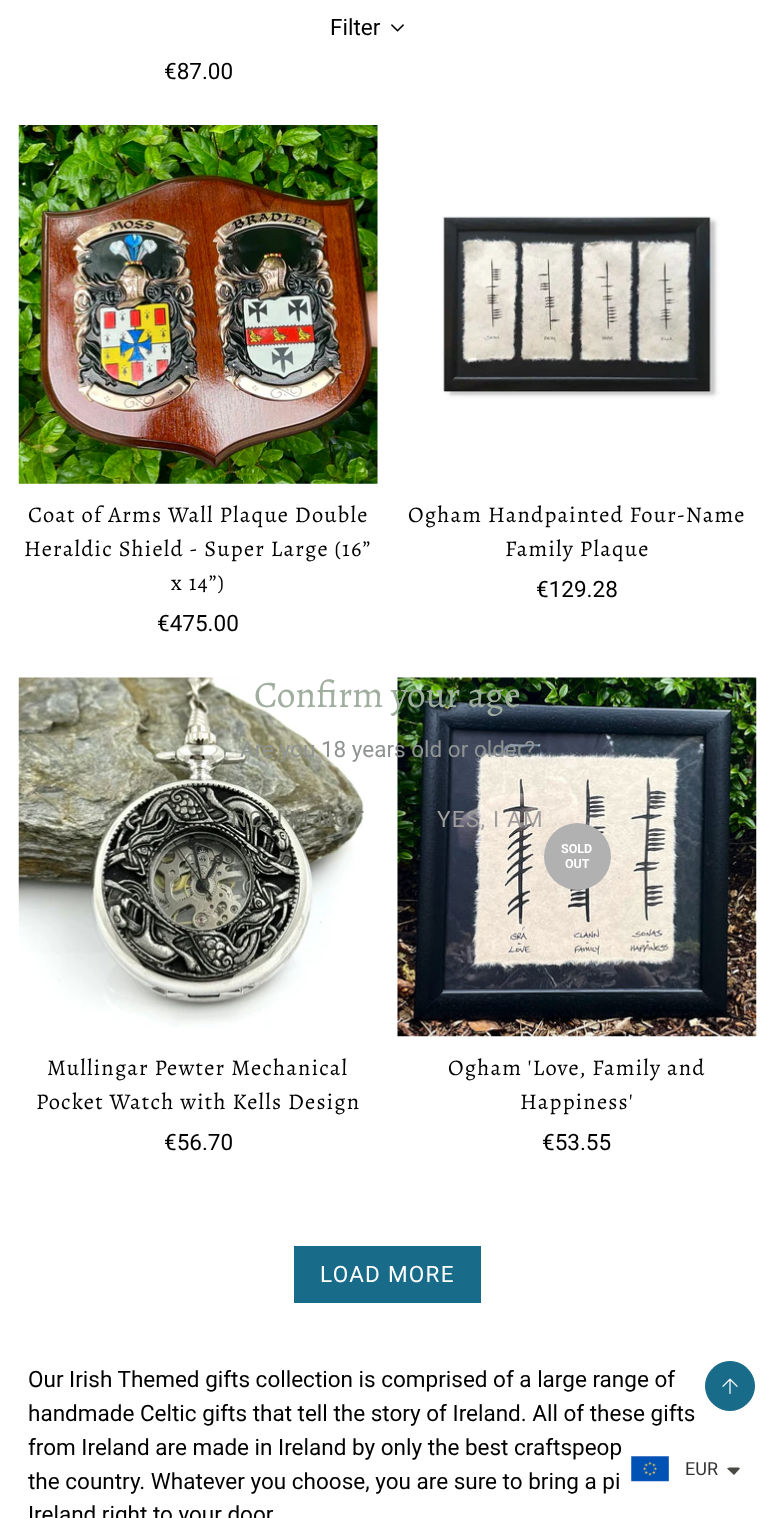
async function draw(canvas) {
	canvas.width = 774;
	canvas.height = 1518;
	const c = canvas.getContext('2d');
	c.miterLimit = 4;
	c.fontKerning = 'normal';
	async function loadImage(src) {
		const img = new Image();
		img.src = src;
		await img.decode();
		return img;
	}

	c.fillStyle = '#fff';
	c.fillRect(0, 0, 774, 1518);
	c.font = '22.5px Roboto';
	c.fillStyle = '#000';
	c.fillText('Filter', 330, 35);
	c.drawImage(await loadImage('img1.png'), 391, 24, 13, 8);
	c.fillText('€87.00', 164, 79);
	c.drawImage(await loadImage('img2.png'), 18, 125, 360, 359);
	c.letterSpacing = '1.25px';
	c.font = '22.5px Alegreya';
	for (const [text, x, y] of [
		['Coat of Arms Wall Plaque Double', 28, 522],
		['Heraldic Shield - Super Large (16”', 24, 556],
		['x 14”)', 171, 590],
	]) {
		c.fillText(text, x, y);
	}
	c.letterSpacing = '0px';
	c.font = '22.5px Roboto';
	c.fillText('€475.00', 157, 631);
	c.drawImage(await loadImage('img3.png'), 441, 216, 279, 184);
	c.letterSpacing = '1.25px';
	c.font = '22.5px Alegreya';
	c.fillText('Ogham Handpainted Four-Name', 408, 522);
	c.fillText('Family Plaque', 505, 556);
	c.letterSpacing = '0px';
	c.font = '22.5px Roboto';
	c.fillText('€129.28', 536, 597);
	c.drawImage(await loadImage('img4.png'), 18, 677, 346, 351);
	c.letterSpacing = '1.25px';
	c.font = '22.5px Alegreya';
	c.fillText('Mullingar Pewter Mechanical', 47, 1075);
	c.fillText('Pocket Watch with Kells Design', 36, 1109);
	c.letterSpacing = '0px';
	c.font = '22.5px Roboto';
	c.fillText('€56.70', 164, 1150);
	c.drawImage(await loadImage('img5.png'), 397, 677, 360, 360);
	c.fillStyle = '#b1b1b1';
	c.beginPath();
	c.arc(577.5, 856.5, 33.5, 0, 2 * Math.PI);
	c.fill();
	c.font = 'bold 12.5px Roboto';
	c.fillStyle = '#fff';
	c.fillText('SOLD', 561, 853);
	c.fillText('OUT', 565, 868);
	c.letterSpacing = '1.25px';
	c.font = '22.5px Alegreya';
	c.fillStyle = '#000';
	c.fillText('Ogham \'Love, Family and', 448, 1075);
	c.fillText('Happiness\'', 520, 1109);
	c.letterSpacing = '0px';
	c.font = '22.5px Roboto';
	c.fillText('€53.55', 542, 1150);
	c.fillStyle = '#186b89';
	c.fillRect(294, 1246, 187, 57);
	c.letterSpacing = '1.25px';
	c.fillStyle = '#fff';
	c.fillText('LOAD MORE', 320, 1282);
	c.letterSpacing = '0px';
	c.fillStyle = '#000';
	for (const [text, x, y] of [
		['Our Irish Themed gifts collection is comprised of a large range of', 28, 1387],
		['handmade Celtic gifts that tell the story of Ireland. All of these gifts', 28, 1421],
		['from Ireland are made in Ireland by only the best craftspeop', 28, 1455],
		['the country. Whatever you choose, you are sure to bring a pi', 28, 1489],
		['Ireland right to your door.', 28, 1522],
	]) {
		c.fillText(text, x, y);
	}
	c.font = '37.5px Alegreya';
	c.fillStyle = '#a0ae9f';
	c.fillText('Confirm your age', 254, 707);
	c.font = '22.5px Roboto';
	c.fillStyle = '#8f9492';
	c.fillText('Are you 18 years old or older?', 240, 757);
	c.letterSpacing = '1.25px';
	c.fillStyle = '#75776b';
	c.fillText('NO, I\'M NOT', 231, 827);
	c.fillStyle = '#a09d9d';
	c.fillText('YES, I AM', 437, 827);
	c.fillStyle = '#186b89';
	c.beginPath();
	c.arc(730, 1386, 24.5, 0, 2 * Math.PI);
	c.fill();
	c.strokeStyle = '#186b89';
	c.stroke();
	c.drawImage(await loadImage('img6.png'), 722, 1378, 16, 16);
	c.drawImage(await loadImage('img7.png'), 631, 1456, 38, 26);
	c.letterSpacing = '0px';
	c.font = '18px Roboto';
	c.fillStyle = '#333';
	c.fillText('EUR', 685, 1475);
	c.fillStyle = '#474942';
	c.beginPath();
	c.moveTo(730, 1467.5);
	c.bezierCurveTo(729, 1467.5, 728, 1468, 727, 1468.5);
	c.lineTo(734, 1475);
	c.lineTo(740, 1468.5);
	c.bezierCurveTo(739.5, 1468, 738.5, 1467.5, 737.5, 1467.5);
	c.closePath();
	c.fill();
}

draw(document.querySelector('canvas'));
